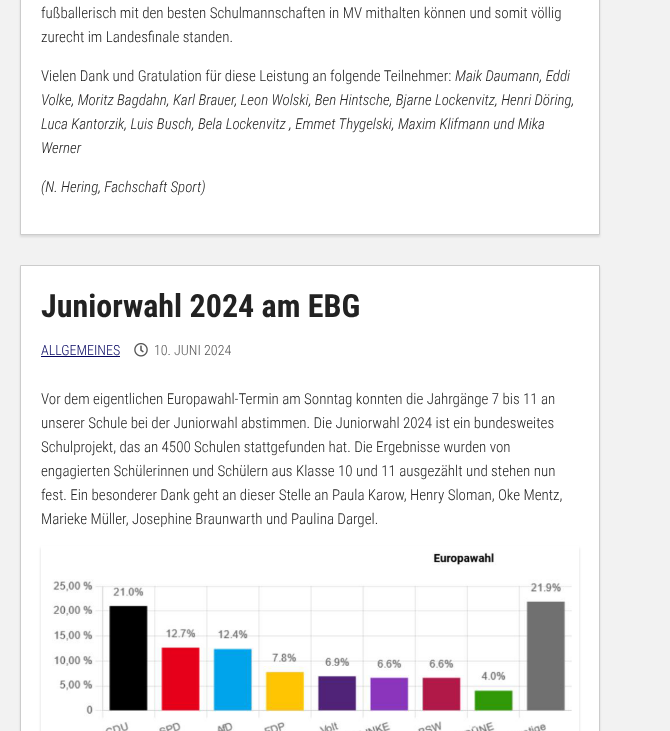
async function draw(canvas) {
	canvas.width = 670;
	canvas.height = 731;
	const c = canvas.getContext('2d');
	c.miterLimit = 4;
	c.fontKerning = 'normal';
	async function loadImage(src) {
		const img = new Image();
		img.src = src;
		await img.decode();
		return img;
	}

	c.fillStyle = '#f2f2f2';
	c.fillRect(0, 0, 670, 731);
	c.fillStyle = '#0000001a';
	c.filter = 'blur(1px)';
	c.beginPath();
	c.rect(20, -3, 580, 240);
	c.fill();
	c.filter = 'none';
	c.fillStyle = '#fff';
	c.beginPath();
	c.rect(20.5, -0.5, 579, 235);
	c.fill();
	c.strokeStyle = '#ccc';
	c.stroke();
	c.font = '300 15px Roboto Condensed';
	c.fillStyle = '#222';
	for (const [text, x, y] of [
		['fußballerisch mit den besten Schulmannschaften in MV mithalten können und somit völlig', 41, 18],
		['zurecht im Landesfinale standen.', 41, 42],
		['Vielen Dank und Gratulation für diese Leistung an folgende Teilnehmer:', 41, 81],
	]) {
		c.fillText(text, x, y);
	}
	c.font = 'italic 300 15px Roboto Condensed';
	for (const [text, x, y] of [
		['Maik Daumann, Eddi', 455, 81],
		['Volke, Moritz Bagdahn, Karl Brauer, Leon Wolski, Ben Hintsche, Bjarne Lockenvitz, Henri Döring,', 41, 105],
		['Luca Kantorzik, Luis Busch, Bela Lockenvitz , Emmet Thygelski, Maxim Klifmann und Mika', 41, 129],
		['Werner', 41, 153],
		['(N. Hering, Fachschaft Sport)', 41, 192],
	]) {
		c.fillText(text, x, y);
	}
	c.fillStyle = '#0000001a';
	c.filter = 'blur(1px)';
	c.beginPath();
	c.rect(20, 267, 580, 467);
	c.fill();
	c.filter = 'none';
	c.fillStyle = '#fff';
	c.beginPath();
	c.rect(20.5, 265.5, 579, 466);
	c.fill();
	c.stroke();
	c.font = 'bold 32px Roboto Condensed';
	c.fillStyle = '#222';
	c.fillText('Juniorwahl 2024 am EBG', 41, 317);
	c.font = '300 14px Roboto Condensed';
	c.fillStyle = '#050560';
	c.fillText('ALLGEMEINES', 41, 355);
	c.fillRect(41, 356, 79, 1);
	c.drawImage(await loadImage('img1.png'), 134, 343, 14, 14);
	c.fillStyle = '#555';
	c.fillText('10. JUNI 2024', 154, 355);
	c.font = '300 15px Roboto Condensed';
	c.fillStyle = '#222';
	for (const [text, x, y] of [
		['Vor dem eigentlichen Europawahl-Termin am Sonntag konnten die Jahrgänge 7 bis 11 an', 41, 404],
		['unserer Schule bei der Juniorwahl abstimmen. Die Juniorwahl 2024 ist ein bundesweites', 41, 428],
		['Schulprojekt, das an 4500 Schulen stattgefunden hat. Die Ergebnisse wurden von', 41, 452],
		['engagierten Schülerinnen und Schülern aus Klasse 10 und 11 ausgezählt und stehen nun', 41, 476],
		['fest. Ein besonderer Dank geht an dieser Stelle an Paula Karow, Henry Sloman, Oke Mentz,', 41, 500],
		['Marieke Müller, Josephine Braunwarth und Paulina Dargel.', 41, 524],
	]) {
		c.fillText(text, x, y);
	}
	c.save();
	c.beginPath();
	c.moveTo(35, 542);
	c.lineTo(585, 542);
	c.lineTo(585, 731);
	c.lineTo(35, 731);
	c.closePath();
	c.moveTo(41, 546);
	c.lineTo(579, 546);
	c.lineTo(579, 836);
	c.lineTo(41, 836);
	c.closePath();
	c.clip('evenodd');
	c.fillStyle = '#00000026';
	c.filter = 'blur(1.5px)';
	c.beginPath();
	c.rect(41, 548, 538, 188);
	c.fill();
	c.filter = 'none';
	c.restore();
	c.drawImage(await loadImage('img2.png'), 52, 552, 520, 179);
}

draw(document.querySelector('canvas'));
